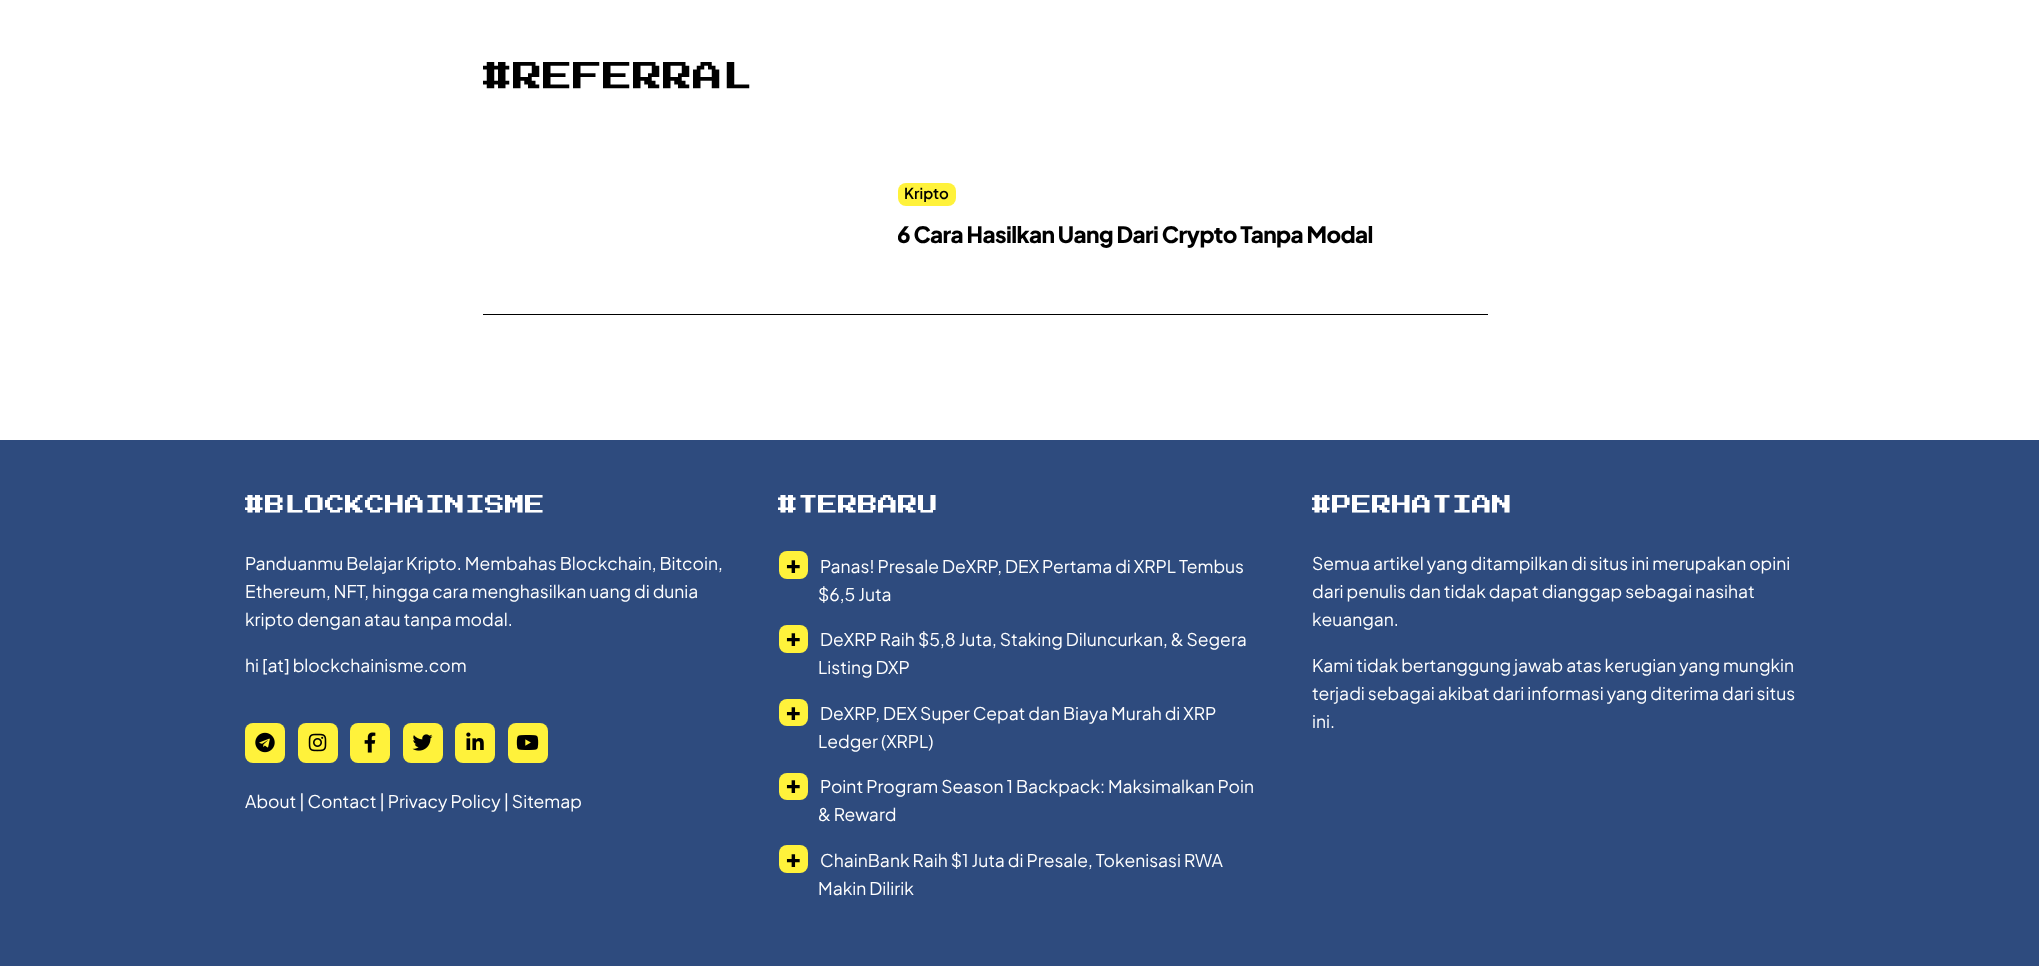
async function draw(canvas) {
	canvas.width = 2039;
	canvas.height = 966;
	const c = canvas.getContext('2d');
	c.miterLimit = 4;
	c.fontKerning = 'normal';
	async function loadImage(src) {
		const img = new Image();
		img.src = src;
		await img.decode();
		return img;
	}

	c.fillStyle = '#fff';
	c.fillRect(0, 0, 2039, 966);
	c.font = '30px "Press Start 2P"';
	c.fillStyle = '#000';
	c.fillText('#REFERRAL', 483, 92);
	c.fillRect(483, 314, 1005, 1);
	c.fillStyle = '#fff23b';
	c.beginPath();
	c.roundRect(898, 183, 58, 23, 8);
	c.fill();
	c.font = '600 15px Plus Jakarta Sans';
	c.fillStyle = '#000';
	c.fillText('Kripto', 904, 199);
	c.save();
	c.beginPath();
	c.rect(898, 220, 590, 28);
	c.clip();
	c.letterSpacing = '-0.6px';
	c.font = '800 22.5px Plus Jakarta Sans';
	c.fillText('6 Cara Hasilkan Uang Dari Crypto Tanpa Modal', 897, 243);
	c.restore();
	c.fillStyle = '#2e4b7e';
	c.fillRect(0, 440, 2039, 526);
	c.font = '20px "Press Start 2P"';
	c.fillStyle = '#fff';
	c.fillText('#BLOCKCHAINISME', 245, 515);
	c.font = '17.5px Plus Jakarta Sans';
	for (const [text, x, y] of [
		['Panduanmu Belajar Kripto. Membahas Blockchain, Bitcoin,', 245, 570],
		['Ethereum, NFT, hingga cara menghasilkan uang di dunia', 245, 598],
		['kripto dengan atau tanpa modal.', 245, 626],
		['hi [at] blockchainisme.com', 245, 672],
	]) {
		c.fillText(text, x, y);
	}
	c.fillStyle = '#fff23b';
	c.beginPath();
	c.roundRect(245, 723, 40, 40, 8);
	c.fill();
	c.drawImage(await loadImage('img1.png'), 255, 732, 20, 21);
	c.beginPath();
	c.roundRect(298, 723, 40, 40, 8);
	c.fill();
	c.drawImage(await loadImage('img2.png'), 308, 733, 19, 19);
	c.beginPath();
	c.roundRect(350, 723, 40, 40, 8);
	c.fill();
	c.drawImage(await loadImage('img3.png'), 364, 732, 12, 21);
	c.beginPath();
	c.roundRect(403, 723, 40, 40, 8);
	c.fill();
	c.drawImage(await loadImage('img4.png'), 412, 734, 21, 17);
	c.beginPath();
	c.roundRect(455, 723, 40, 40, 8);
	c.fill();
	c.drawImage(await loadImage('img5.png'), 466, 732, 18, 18);
	c.beginPath();
	c.roundRect(508, 723, 40, 40, 8);
	c.fill();
	c.drawImage(await loadImage('img6.png'), 516, 735, 23, 15);
	c.fillStyle = '#fff';
	c.fillText('About | Contact | Privacy Policy | Sitemap', 245, 808);
	c.font = '20px "Press Start 2P"';
	c.fillText('#TERBARU', 778, 515);
	c.fillStyle = '#fff23b';
	c.beginPath();
	c.roundRect(779, 551, 29, 28, 8);
	c.fill();
	c.font = '17.5px DejaVu Sans';
	c.fillStyle = '#000';
	c.fillText('✚', 786, 573);
	c.font = '17.5px Plus Jakarta Sans';
	c.fillStyle = '#fff';
	c.fillText('Panas! Presale DeXRP, DEX Pertama di XRPL Tembus', 820, 573);
	c.fillText('$6,5 Juta', 818, 601);
	c.fillStyle = '#fff23b';
	c.beginPath();
	c.roundRect(779, 625, 29, 28, 8);
	c.fill();
	c.font = '17.5px DejaVu Sans';
	c.fillStyle = '#000';
	c.fillText('✚', 786, 646);
	c.font = '17.5px Plus Jakarta Sans';
	c.fillStyle = '#fff';
	c.fillText('DeXRP Raih $5,8 Juta, Staking Diluncurkan, & Segera', 820, 646);
	c.fillText('Listing DXP', 818, 674);
	c.fillStyle = '#fff23b';
	c.beginPath();
	c.roundRect(779, 699, 29, 27, 8);
	c.fill();
	c.font = '17.5px DejaVu Sans';
	c.fillStyle = '#000';
	c.fillText('✚', 786, 720);
	c.font = '17.5px Plus Jakarta Sans';
	c.fillStyle = '#fff';
	c.fillText('DeXRP, DEX Super Cepat dan Biaya Murah di XRP', 820, 720);
	c.fillText('Ledger (XRPL)', 818, 748);
	c.fillStyle = '#fff23b';
	c.beginPath();
	c.roundRect(779, 773, 29, 27, 8);
	c.fill();
	c.font = '17.5px DejaVu Sans';
	c.fillStyle = '#000';
	c.fillText('✚', 786, 793);
	c.font = '17.5px Plus Jakarta Sans';
	c.fillStyle = '#fff';
	c.fillText('Point Program Season 1 Backpack: Maksimalkan Poin', 820, 793);
	c.fillText('& Reward', 818, 821);
	c.fillStyle = '#fff23b';
	c.beginPath();
	c.roundRect(779, 845, 29, 28, 8);
	c.fill();
	c.font = '17.5px DejaVu Sans';
	c.fillStyle = '#000';
	c.fillText('✚', 786, 867);
	c.font = '17.5px Plus Jakarta Sans';
	c.fillStyle = '#fff';
	c.fillText('ChainBank Raih $1 Juta di Presale, Tokenisasi RWA', 820, 867);
	c.fillText('Makin Dilirik', 818, 895);
	c.font = '20px "Press Start 2P"';
	c.fillText('#PERHATIAN', 1312, 515);
	c.font = '17.5px Plus Jakarta Sans';
	for (const [text, x, y] of [
		['Semua artikel yang ditampilkan di situs ini merupakan opini', 1312, 570],
		['dari penulis dan tidak dapat dianggap sebagai nasihat', 1312, 598],
		['keuangan.', 1312, 626],
		['Kami tidak bertanggung jawab atas kerugian yang mungkin', 1312, 672],
		['terjadi sebagai akibat dari informasi yang diterima dari situs', 1312, 700],
		['ini.', 1312, 728],
	]) {
		c.fillText(text, x, y);
	}
}

draw(document.querySelector('canvas'));
